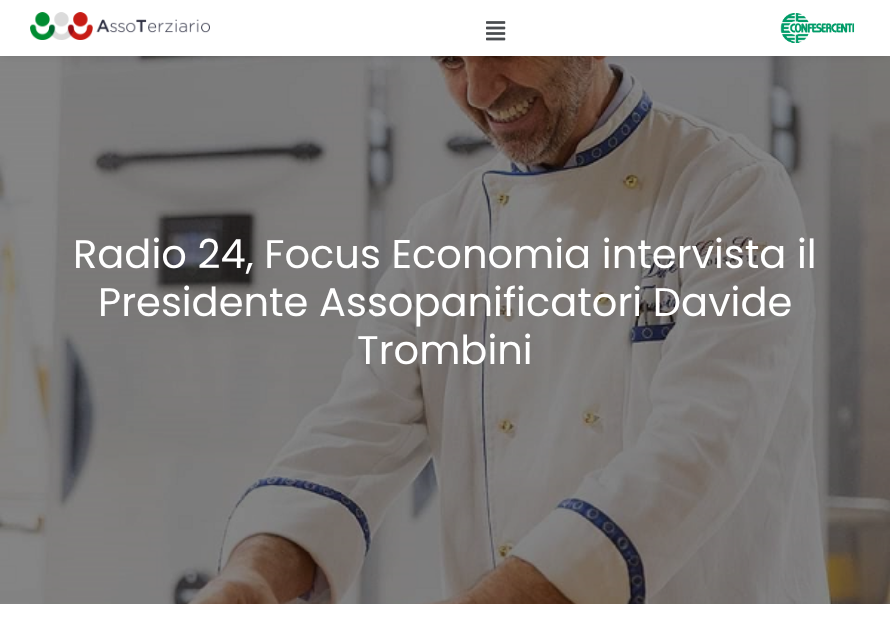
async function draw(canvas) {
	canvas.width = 890;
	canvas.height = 624;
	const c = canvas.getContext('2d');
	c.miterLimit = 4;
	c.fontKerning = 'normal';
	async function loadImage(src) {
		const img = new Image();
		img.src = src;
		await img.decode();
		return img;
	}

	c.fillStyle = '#fff';
	c.fillRect(0, 0, 890, 624);
	c.drawImage(await loadImage('img4.png'), 0, 56, 890, 548);
	c.fillStyle = '#00000038';
	c.filter = 'blur(5px)';
	c.beginPath();
	c.rect(3, 3, 884, 50);
	c.fill();
	c.filter = 'none';
	c.fillStyle = '#fff';
	c.fillRect(0, 0, 890, 56);
	c.drawImage(await loadImage('img1.png'), 30, 12, 180, 28);
	c.drawImage(await loadImage('img2.png'), 486, 21, 20, 20);
	c.drawImage(await loadImage('img3.png'), 780, 13, 75, 30);
	c.font = '40px Poppins';
	for (const [text, x, y] of [
		['Radio 24, Focus Economia intervista il', 73, 268],
		['Presidente Assopanificatori Davide', 98, 316],
		['Trombini', 357, 364],
	]) {
		c.fillText(text, x, y);
	}
}

draw(document.querySelector('canvas'));
